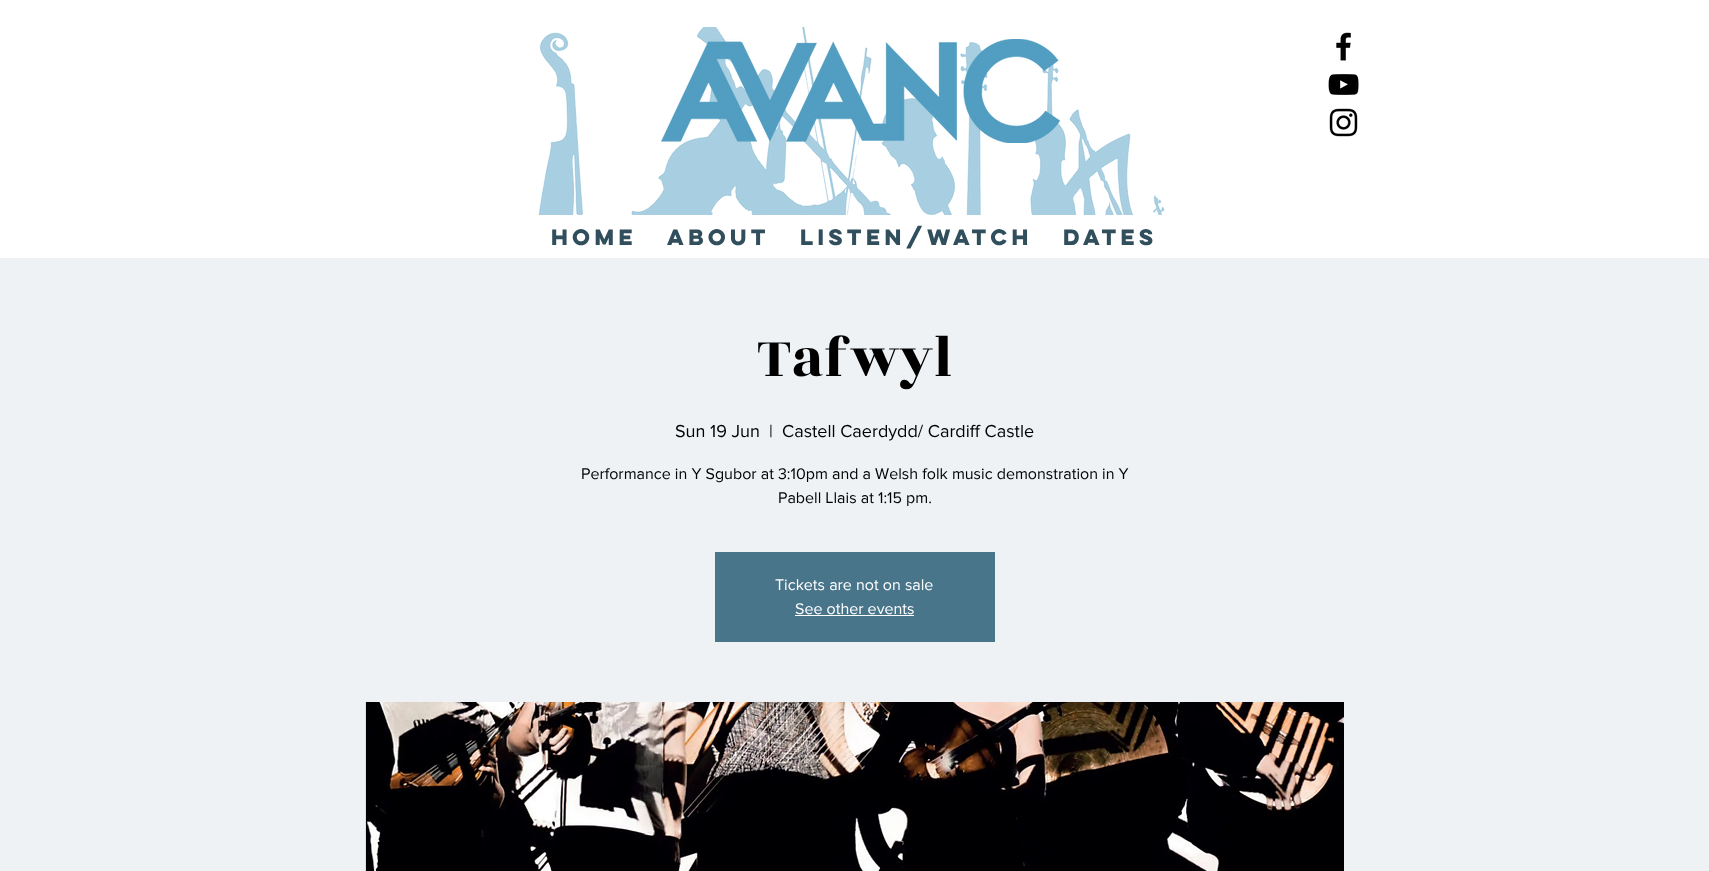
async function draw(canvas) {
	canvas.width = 1709;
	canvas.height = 871;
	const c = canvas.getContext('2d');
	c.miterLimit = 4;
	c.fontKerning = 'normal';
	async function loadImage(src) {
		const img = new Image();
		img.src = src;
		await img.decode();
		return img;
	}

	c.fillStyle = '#fff';
	c.fillRect(0, 0, 1709, 871);
	c.drawImage(await loadImage('img1.png'), 538, 27, 627, 188);
	c.drawImage(await loadImage('img2.png'), 1336, 32, 15, 29);
	c.drawImage(await loadImage('img3.png'), 1328, 74, 31, 21);
	c.drawImage(await loadImage('img4.png'), 1329, 108, 29, 29);
	c.drawImage(await loadImage('img5.png'), 661, 39, 399, 104);
	c.font = 'bold 20px "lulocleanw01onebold"';
	c.fillStyle = '#314e5d';
	for (const [text, x, y] of [
		['Home', 551, 245],
		['About', 667, 245],
		['Listen/Watch', 800, 245],
		['Dates', 1063, 245],
	]) {
		c.fillText(text, x, y);
	}
	c.fillStyle = '#eef2f4';
	c.fillRect(0, 258, 1709, 613);
	c.font = '60px Rozha One';
	c.fillStyle = '#000';
	c.fillText('Tafwyl', 757, 376);
	c.font = '18px "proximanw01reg"';
	for (const [text, x, y] of [
		['Sun 19 Jun', 675, 437],
		['|', 769, 437],
		['Castell Caerdydd/ Cardiff Castle', 782, 437],
	]) {
		c.fillText(text, x, y);
	}
	c.font = '16px "proximanw01reg"';
	c.fillText('Performance in Y Sgubor at 3:10pm and a Welsh folk music demonstration in Y', 581, 479);
	c.fillText('Pabell Llais at 1:15 pm.', 778, 503);
	c.fillStyle = '#49758b';
	c.fillRect(715, 552, 280, 90);
	c.fillStyle = '#fff';
	c.fillText('Tickets are not on sale', 775, 590);
	c.fillText('See other events', 795, 614);
	c.fillRect(795, 615, 119, 1);
	c.drawImage(await loadImage('img6.png'), 365, 702, 979, 169);
}

draw(document.querySelector('canvas'));
